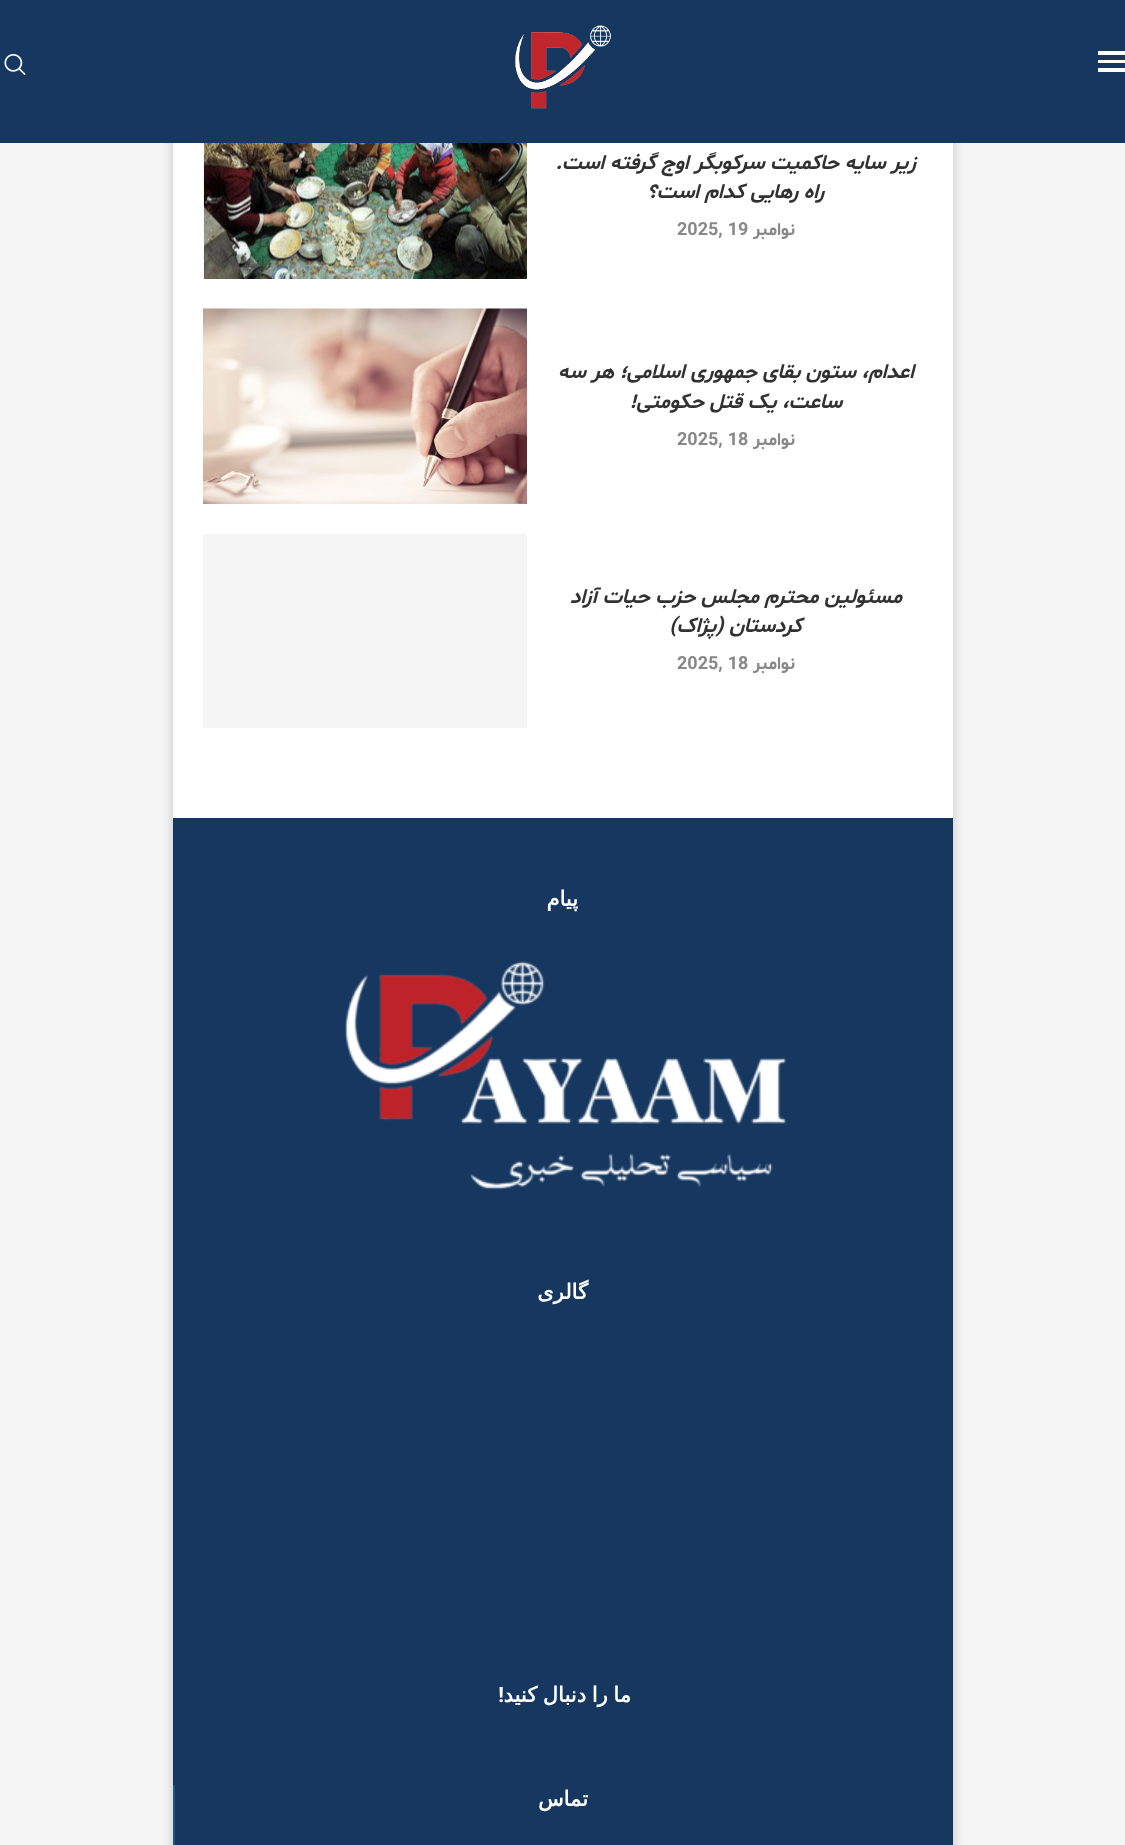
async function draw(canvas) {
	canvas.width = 1125;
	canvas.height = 1845;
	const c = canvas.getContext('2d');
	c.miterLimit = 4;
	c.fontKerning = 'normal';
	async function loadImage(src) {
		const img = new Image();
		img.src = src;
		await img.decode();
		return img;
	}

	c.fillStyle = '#f5f5f5';
	c.fillRect(0, 0, 1125, 1845);
	c.fillStyle = '#00000033';
	c.filter = 'blur(6px)';
	c.beginPath();
	c.rect(173, -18, 780, 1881);
	c.fill();
	c.filter = 'none';
	for (const [x, y, w, h, color] of [
		[173, 143, 780, 675, '#fff'],
		[0, 0, 1125, 143, '#163860'],
		[1098, 51, 27, 4, '#fff'],
		[1098, 60, 27, 3, '#fff'],
		[1098, 68, 27, 4, '#fff'],
	]) {
		c.fillStyle = color;
		c.fillRect(x, y, w, h);
	}
	c.drawImage(await loadImage('img1.png'), 515, 25, 96, 84);
	c.drawImage(await loadImage('img2.png'), 4, 54, 22, 21);
	c.direction = 'rtl';
	c.font = 'italic bold 21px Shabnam';
	c.fillStyle = '#313131';
	c.fillText('زیر سایه حاکمیت سرکوبگر اوج گرفته است.', 916, 169);
	c.fillText('راه رهایی کدام است؟', 824, 198);
	c.font = 'bold 18px Shabnam';
	c.fillStyle = '#888';
	c.fillText('نوامبر', 795, 235);
	c.direction = 'ltr';
	c.fillText('2025, 19', 677, 235);
	c.drawImage(await loadImage('img3.png'), 203, 143, 324, 136);
	c.direction = 'rtl';
	c.font = 'italic bold 21px Shabnam';
	c.fillStyle = '#313131';
	c.fillText('اعدام، ستون بقای جمهوری اسلامی؛ هر سه', 914, 378);
	c.fillText('ساعت، یک قتل حکومتی!', 842, 408);
	c.font = 'bold 18px Shabnam';
	c.fillStyle = '#888';
	c.fillText('نوامبر', 795, 445);
	c.direction = 'ltr';
	c.fillText('2025, 18', 677, 445);
	c.drawImage(await loadImage('img4.png'), 203, 308, 324, 196);
	c.direction = 'rtl';
	c.font = 'italic bold 21px Shabnam';
	c.fillStyle = '#313131';
	c.fillText('مسئولین محترم مجلس حزب حیات آزاد', 902, 603);
	c.fillText('کردستان (پژاک)', 802, 632);
	c.font = 'bold 18px Shabnam';
	c.fillStyle = '#888';
	c.fillText('نوامبر', 795, 669);
	c.direction = 'ltr';
	c.fillText('2025, 18', 677, 669);
	c.fillStyle = '#f5f5f5';
	c.fillRect(203, 534, 324, 194);
	c.fillStyle = '#163860';
	c.fillRect(173, 818, 780, 1027);
	c.direction = 'rtl';
	c.font = 'bold 21px DejaVu Sans';
	c.fillStyle = '#fff';
	c.fillText('پیام', 578, 906);
	c.drawImage(await loadImage('img5.png'), 345, 961, 442, 229);
	c.fillText('گالری', 588, 1299);
	c.wordSpacing = '-1px';
	c.fillText('ما را دنبال کنید', 631, 1702);
	c.wordSpacing = '0px';
	c.font = 'bold 21px Roboto';
	c.fillText('!', 504, 1702);
	c.fillStyle = '#1d587f';
	c.fillRect(173, 1785, 2, 60);
	c.font = 'bold 21px DejaVu Sans';
	c.fillStyle = '#fff';
	c.fillText('تماس', 588, 1806);
}

draw(document.querySelector('canvas'));
